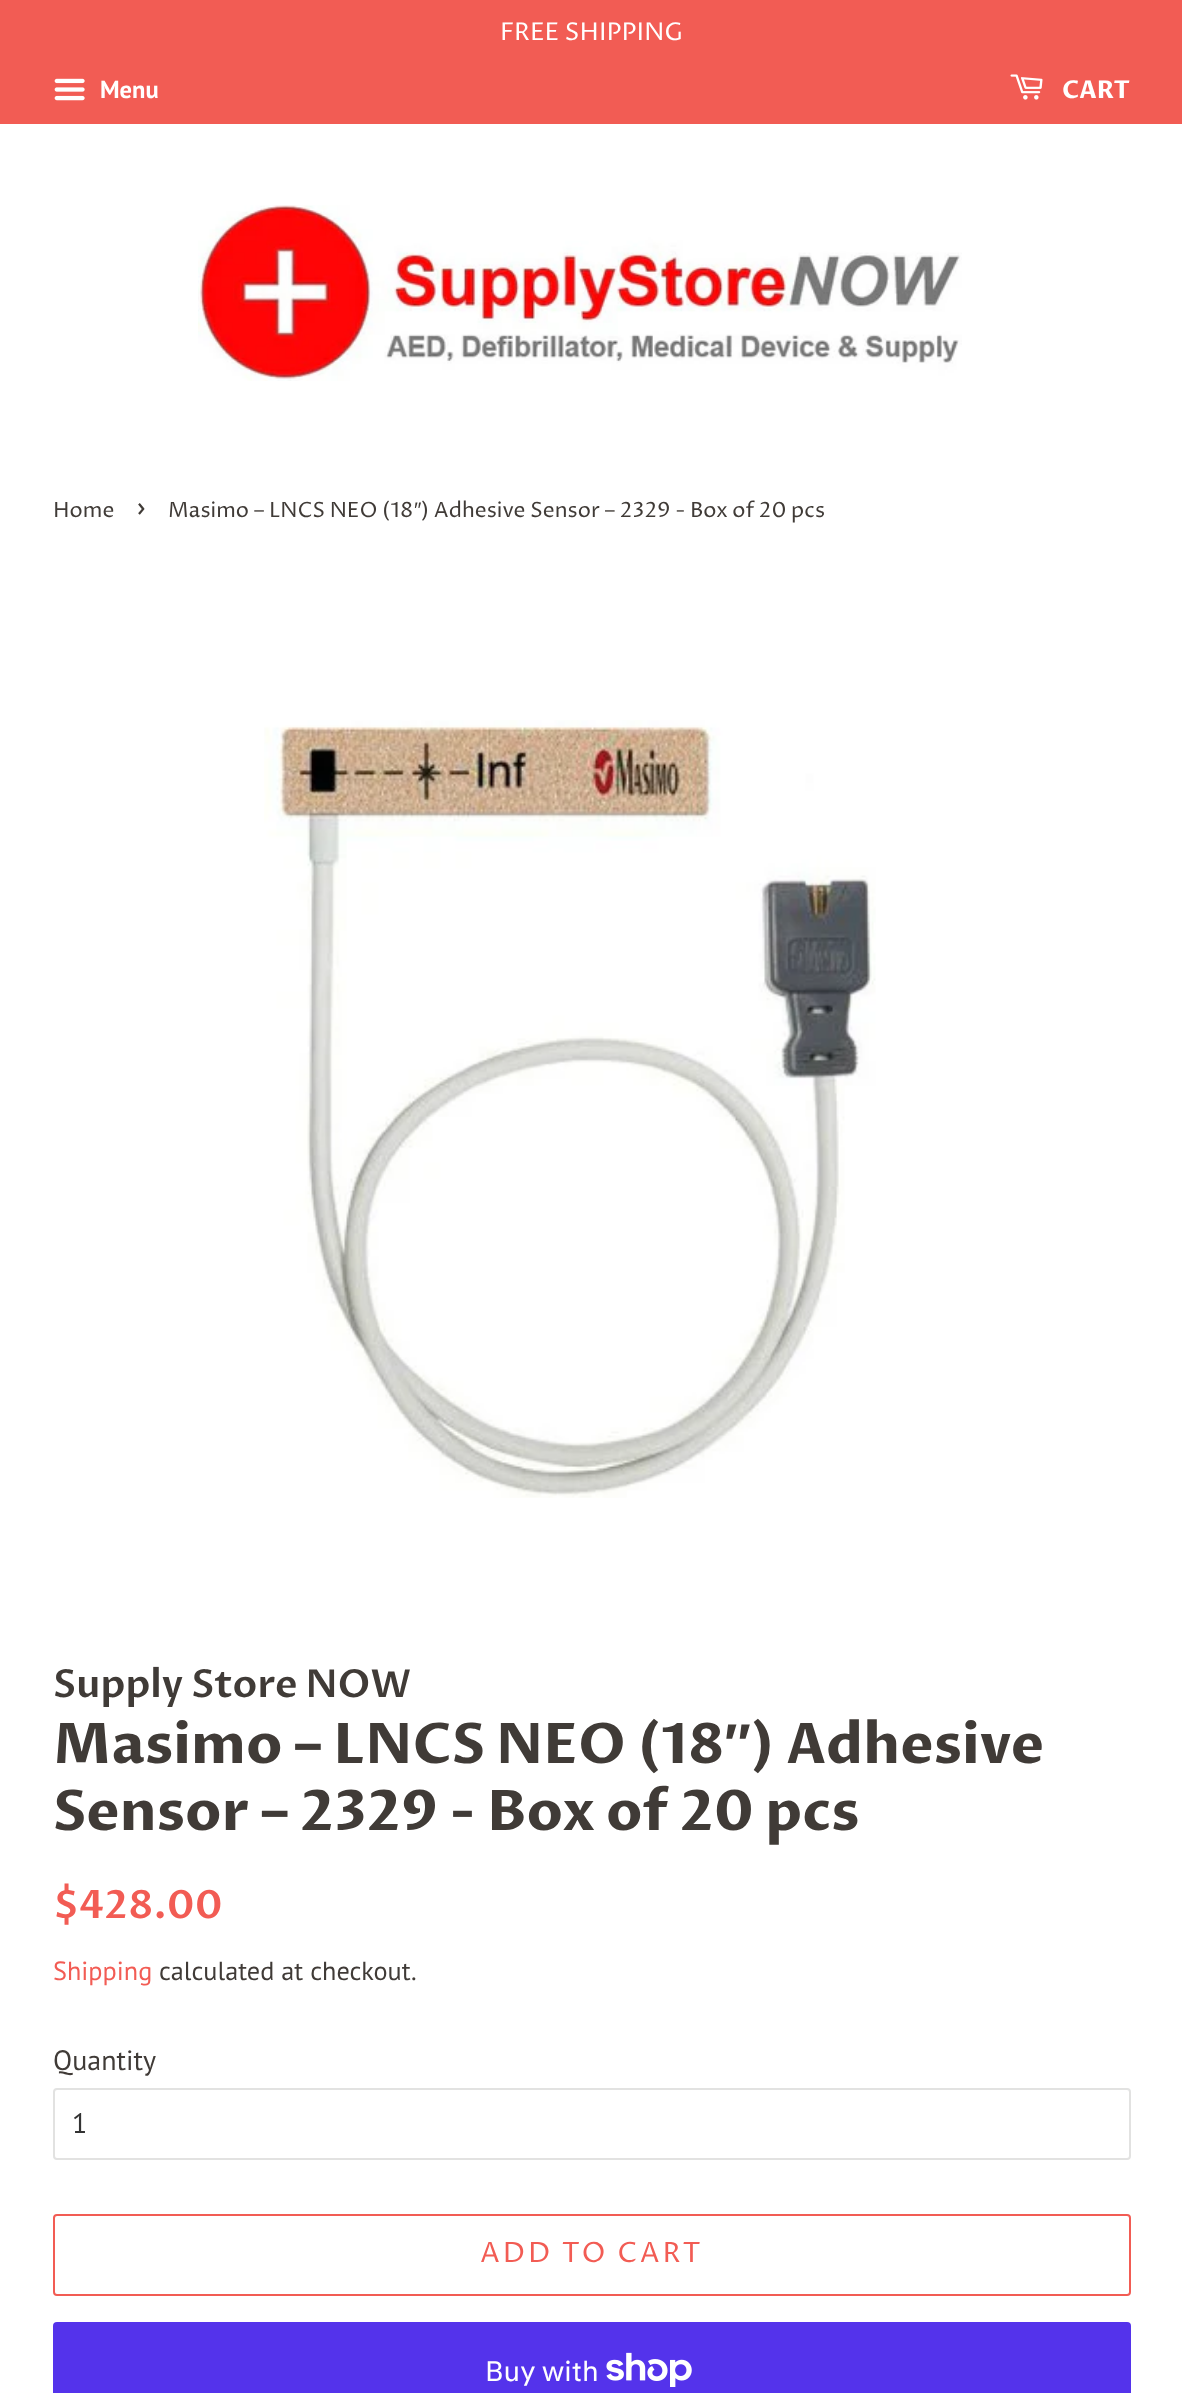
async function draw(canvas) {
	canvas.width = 1182;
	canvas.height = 2393;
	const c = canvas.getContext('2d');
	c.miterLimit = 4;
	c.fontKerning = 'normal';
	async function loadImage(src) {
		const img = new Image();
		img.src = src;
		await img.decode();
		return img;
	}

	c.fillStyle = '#fff';
	c.fillRect(0, 0, 1182, 2393);
	c.fillStyle = '#f25c54';
	c.fillRect(0, 0, 1182, 124);
	c.font = '24.5px Proza Libre';
	c.fillStyle = '#fff';
	c.fillText('FREE SHIPPING', 500, 40);
	c.drawImage(await loadImage('img1.png'), 54, 78, 31, 23);
	c.font = 'bold 24.5px PT Sans';
	c.fillText('Menu', 100, 98);
	c.drawImage(await loadImage('img2.png'), 1010, 74, 33, 26);
	c.font = 'bold 24.5px Proza Libre';
	c.fillText('CART', 1062, 98);
	c.drawImage(await loadImage('img3.png'), 198, 205, 764, 176);
	c.font = '21px Proza Libre';
	c.fillStyle = '#403b37';
	c.fillText('Home', 53, 517);
	c.font = '29px Proza Libre';
	c.fillText('›', 136, 517);
	c.font = '21px Proza Libre';
	c.fillText('Masimo – LNCS NEO (18', 168, 517);
	c.font = '21px Liberation Sans';
	c.fillText('″', 414, 517);
	c.font = '21px Proza Libre';
	c.fillText(') Adhesive Sensor – 2329 - Box of 20 pcs', 421, 517);
	c.drawImage(await loadImage('img4.png'), 264, 720, 612, 778);
	c.font = '600 38.5px Proza Libre';
	c.fillText('Supply Store NOW', 53, 1697);
	c.font = 'bold 56px Proza Libre';
	c.fillText('Masimo – LNCS NEO (18', 53, 1763);
	c.font = 'bold 56px Liberation Sans';
	c.fillText('″', 724, 1763);
	c.font = 'bold 56px Proza Libre';
	c.fillText(') Adhesive', 751, 1763);
	c.fillText('Sensor – 2329 - Box of 20 pcs', 53, 1830);
	c.font = '600 39px Proza Libre';
	c.fillStyle = '#f25c54';
	c.fillText('$428.00', 53, 1918);
	c.font = '26.25px PT Sans';
	c.fillText('Shipping', 53, 1980);
	c.fillStyle = '#403b37';
	c.fillText('calculated at checkout.', 159, 1980);
	c.font = '28px PT Sans';
	c.fillText('Quantity', 53, 2070);
	c.beginPath();
	c.roundRect(54, 2089, 1076, 70, 3);
	c.strokeStyle = '#e2e2e1';
	c.lineWidth = 2;
	c.stroke();
	c.fillStyle = '#333';
	c.fillText('1', 72, 2133);
	c.beginPath();
	c.roundRect(54, 2215, 1076, 80, 3);
	c.strokeStyle = '#f25c54';
	c.stroke();
	c.letterSpacing = '2.75px';
	c.font = '28px Proza Libre';
	c.fillStyle = '#f25c54';
	c.fillText('ADD TO CART', 480, 2262);
	c.fillStyle = '#5433eb';
	c.beginPath();
	c.roundRect(53, 2322, 1078, 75, 4);
	c.fill();
	c.letterSpacing = '0px';
	c.font = '28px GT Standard';
	c.fillStyle = '#fff';
	c.fillText('Buy with', 485, 2381);
	c.drawImage(await loadImage('img5.png'), 606, 2352, 86, 35);
}

draw(document.querySelector('canvas'));
